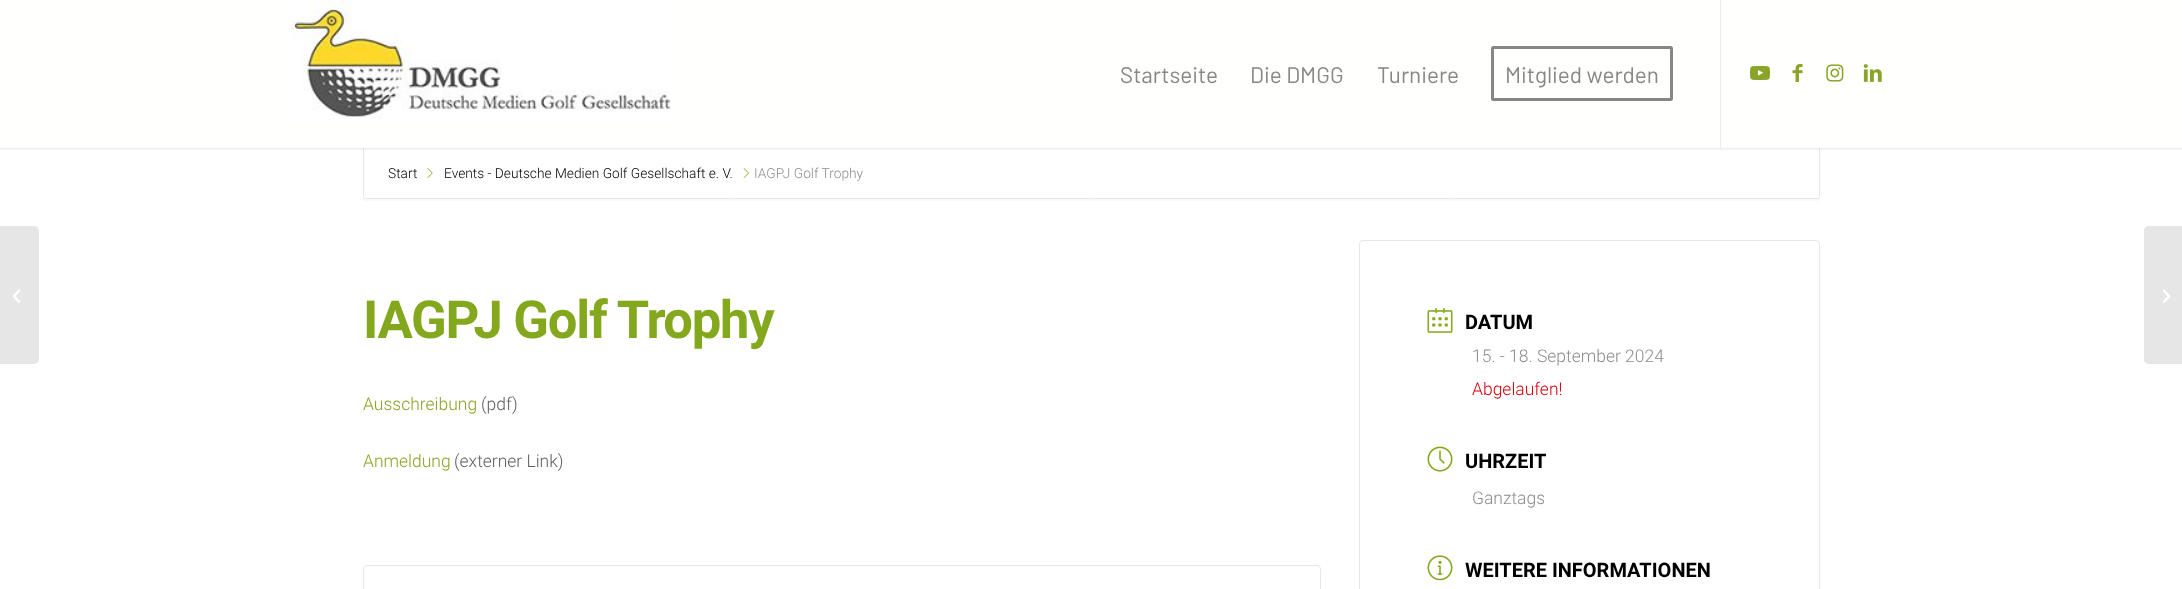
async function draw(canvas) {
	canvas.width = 2182;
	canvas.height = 589;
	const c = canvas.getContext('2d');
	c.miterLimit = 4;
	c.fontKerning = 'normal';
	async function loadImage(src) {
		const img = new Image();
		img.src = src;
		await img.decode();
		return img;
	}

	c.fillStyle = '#fff';
	c.fillRect(0, 0, 2182, 589);
	c.fillStyle = '#f9f9f9';
	c.beginPath();
	c.moveTo(363, 198);
	c.bezierCurveTo(363, 200, 364, 201, 366, 201);
	c.lineTo(1818, 201);
	c.bezierCurveTo(1819, 201, 1820, 200, 1820, 198);
	c.lineTo(1820, 196);
	c.bezierCurveTo(1820, 198, 1819, 199, 1818, 199);
	c.lineTo(365, 199);
	c.closePath();
	c.fill();
	c.beginPath();
	c.roundRect(363.5, 145.5, 1456, 53, 2);
	c.strokeStyle = '#e6e6e6';
	c.stroke();
	c.fillStyle = '#0000001a';
	c.filter = 'blur(1px)';
	c.beginPath();
	c.rect(-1, -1, 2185, 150);
	c.fill();
	c.filter = 'none';
	c.fillStyle = '#fffffe';
	c.fillRect(0, 0, 2182, 148);
	c.drawImage(await loadImage('img1.png'), 291, 0, 380, 118);
	c.fillStyle = '#ebebeb';
	c.fillRect(1720, 0, 1, 148);
	c.font = '22.5px Barlow';
	c.fillStyle = '#878787';
	for (const [text, x, y] of [
		['Startseite', 1120, 83],
		['Die DMGG', 1250, 83],
		['Turniere', 1377, 83],
	]) {
		c.fillText(text, x, y);
	}
	c.beginPath();
	c.roundRect(1492.5, 47.5, 179, 52, 1);
	c.strokeStyle = '#878787';
	c.lineWidth = 3;
	c.stroke();
	c.fillText('Mitglied werden', 1505, 83);
	c.drawImage(await loadImage('img2.png'), 1750, 65, 20, 15);
	c.drawImage(await loadImage('img3.png'), 1792, 64, 11, 18);
	c.drawImage(await loadImage('img4.png'), 1826, 64, 18, 18);
	c.drawImage(await loadImage('img5.png'), 1863, 64, 19, 18);
	c.fillStyle = '#e6e6e6';
	c.beginPath();
	c.roundRect(0, 226, 39, 138, [0, 5, 5, 0]);
	c.fill();
	c.drawImage(await loadImage('img6.png'), 13, 289, 7, 14);
	c.font = '300 13.75px Roboto';
	c.fillStyle = '#000';
	c.fillText('Start', 388, 178);
	c.drawImage(await loadImage('img7.png'), 427, 168, 6, 11);
	c.fillText('Events - Deutsche Medien Golf Gesellschaft e. V.', 444, 178);
	c.drawImage(await loadImage('img8.png'), 743, 168, 6, 11);
	c.fillStyle = '#8d8d8d';
	c.fillText('IAGPJ Golf Trophy', 754, 178);
	c.letterSpacing = '-1.25px';
	c.font = 'bold 52.5px Roboto';
	c.fillStyle = '#83a81d';
	c.fillText('IAGPJ Golf Trophy', 363, 338);
	c.letterSpacing = '0px';
	c.font = '300 17.5px Roboto';
	c.fillStyle = '#89a427';
	c.fillText('Ausschreibung', 363, 410);
	c.fillStyle = '#616161';
	c.fillText('(pdf)', 481, 410);
	c.fillStyle = '#89a427';
	c.fillText('Anmeldung', 363, 467);
	c.fillStyle = '#616161';
	c.fillText('(externer Link)', 454, 467);
	c.beginPath();
	c.roundRect(363.5, 565.5, 957, 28, 3.5);
	c.strokeStyle = '#e6e7e8';
	c.lineWidth = 1;
	c.stroke();
	c.beginPath();
	c.roundRect(1359.5, 240.5, 460, 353, 3.5);
	c.stroke();
	c.drawImage(await loadImage('img9.png'), 1427, 307, 26, 26);
	c.font = 'bold 20px Roboto';
	c.fillStyle = '#000';
	c.fillText('DATUM', 1465, 329);
	c.font = '300 17.5px Roboto';
	c.fillStyle = '#8d8d8d';
	c.fillText('15. - 18. September 2024', 1472, 362);
	c.fillStyle = '#d8000c';
	c.fillText('Abgelaufen!', 1472, 395);
	c.drawImage(await loadImage('img10.png'), 1427, 446, 26, 26);
	c.font = 'bold 20px Roboto';
	c.fillStyle = '#000';
	c.fillText('UHRZEIT', 1465, 468);
	c.font = '300 17.5px Roboto';
	c.fillStyle = '#8d8d8d';
	c.fillText('Ganztags', 1472, 504);
	c.drawImage(await loadImage('img11.png'), 1427, 555, 26, 26);
	c.font = 'bold 20px Roboto';
	c.fillStyle = '#000';
	c.fillText('WEITERE INFORMATIONEN', 1465, 577);
	c.fillStyle = '#e6e6e6';
	c.beginPath();
	c.moveTo(2149, 226);
	c.lineTo(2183, 226);
	c.lineTo(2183, 364);
	c.lineTo(2149, 364);
	c.bezierCurveTo(2146, 364, 2144, 362, 2144, 359);
	c.lineTo(2144, 231);
	c.bezierCurveTo(2144, 228, 2146, 226, 2149, 226);
	c.closePath();
	c.fill();
	c.drawImage(await loadImage('img12.png'), 2163, 289, 7, 14);
}

draw(document.querySelector('canvas'));
